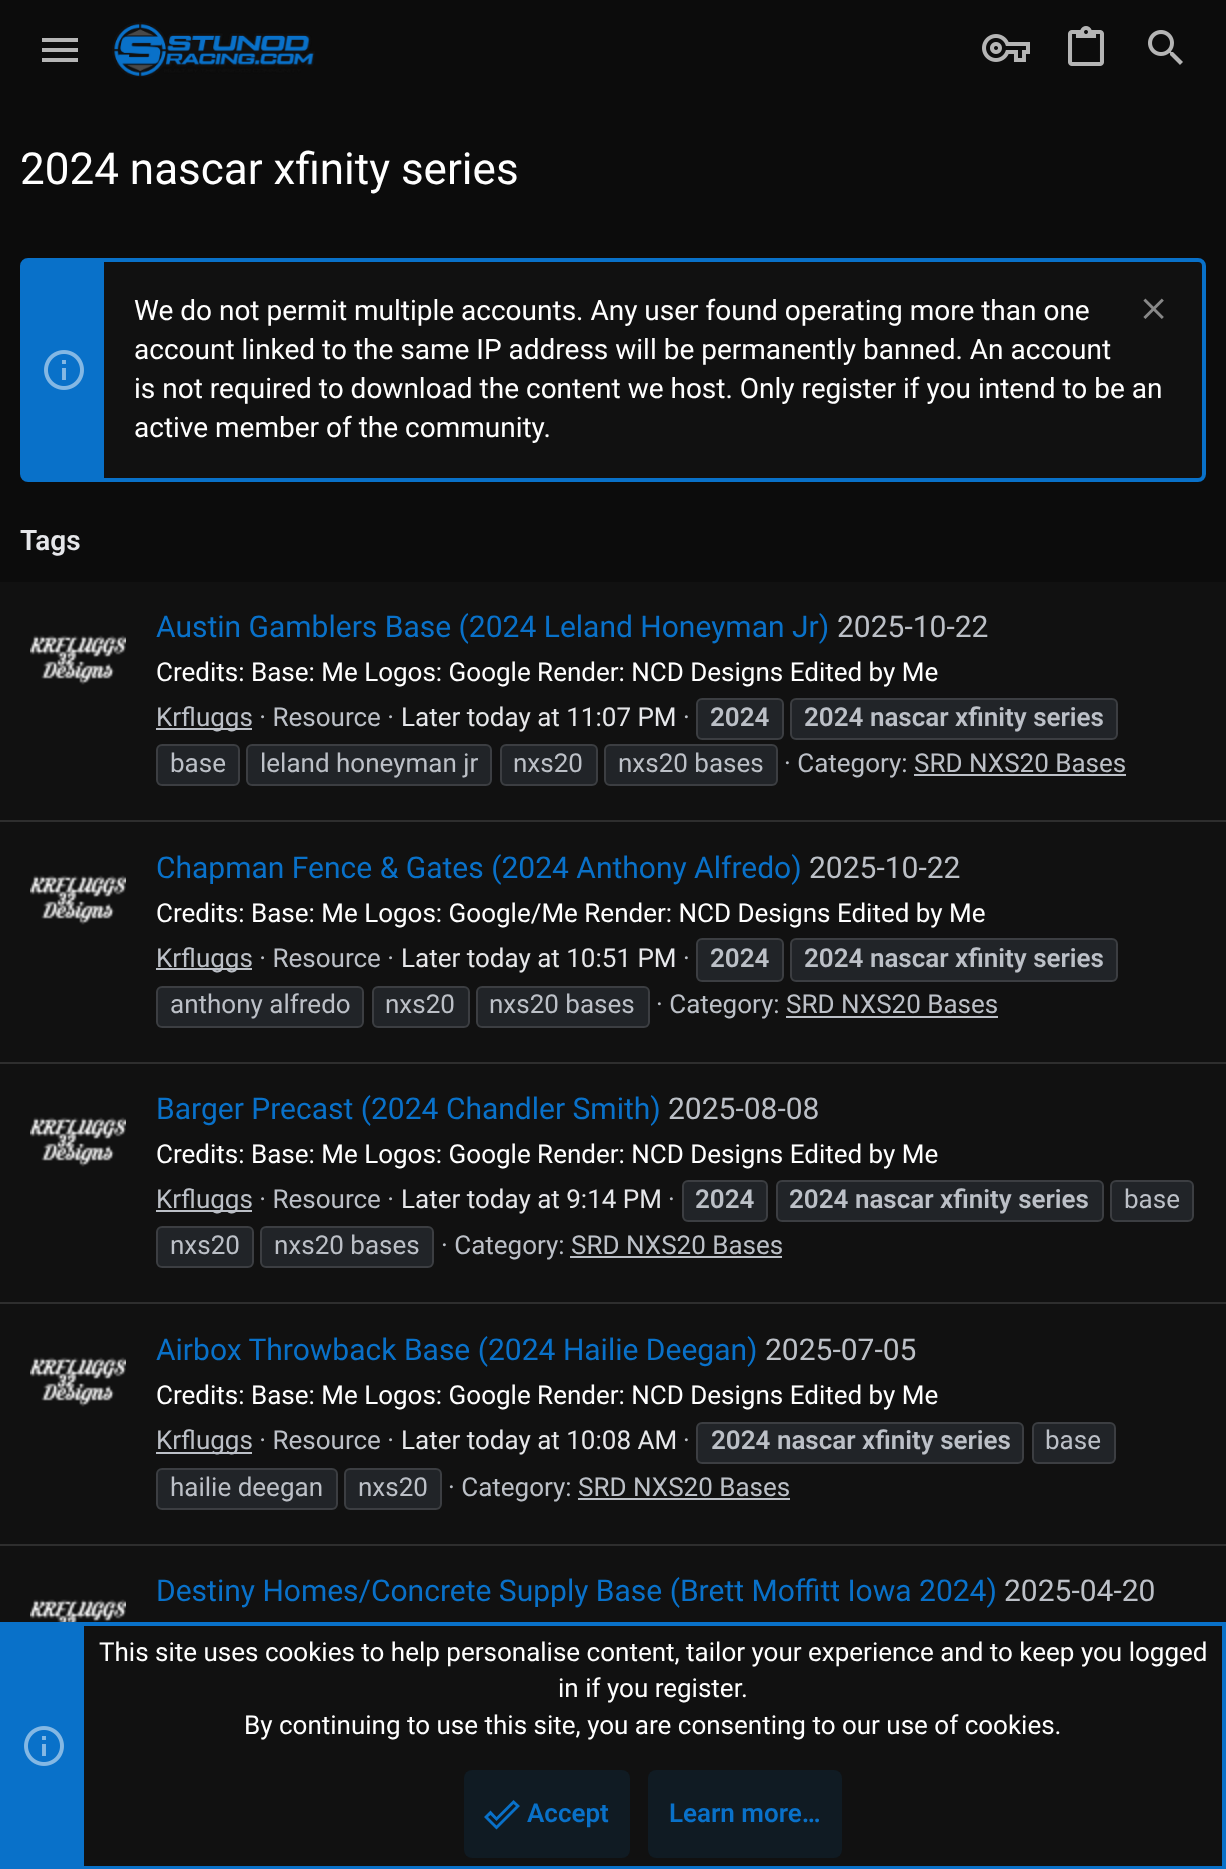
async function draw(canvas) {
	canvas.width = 1226;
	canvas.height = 1869;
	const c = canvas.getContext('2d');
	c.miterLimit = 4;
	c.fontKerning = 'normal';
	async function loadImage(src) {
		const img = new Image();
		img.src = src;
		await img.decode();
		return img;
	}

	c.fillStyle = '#0c0c0c';
	c.fillRect(0, 0, 1226, 1869);
	c.fillStyle = '#b6b6b6';
	c.beginPath();
	c.moveTo(42, 38);
	c.lineTo(78, 38);
	c.lineTo(78, 42);
	c.lineTo(42, 42);
	c.closePath();
	c.moveTo(42, 48);
	c.lineTo(78, 48);
	c.lineTo(78, 52);
	c.lineTo(42, 52);
	c.closePath();
	c.moveTo(42, 58);
	c.lineTo(78, 58);
	c.lineTo(78, 62);
	c.lineTo(42, 62);
	c.closePath();
	c.fill();
	c.drawImage(await loadImage('img1.png'), 112, 22, 203, 55);
	c.drawImage(await loadImage('img2.png'), 982, 34, 48, 28);
	c.drawImage(await loadImage('img3.png'), 1068, 26, 36, 40);
	c.drawImage(await loadImage('img4.png'), 1148, 30, 35, 35);
	c.font = '44px Roboto';
	c.fillStyle = '#fff';
	c.fillText('2024 nascar xfinity series', 20, 184);
	c.fillStyle = '#111';
	c.beginPath();
	c.roundRect(22, 260, 1182, 220, 6);
	c.fill();
	c.strokeStyle = '#0971c9';
	c.lineWidth = 4;
	c.stroke();
	c.fillStyle = '#0971c9';
	c.fillRect(24, 262, 80, 216);
	c.drawImage(await loadImage('img5.png'), 44, 350, 40, 40);
	c.font = '28px Roboto';
	c.fillStyle = '#fff';
	c.fillText('We do not permit multiple accounts. Any user found operating more than one', 134, 320);
	c.drawImage(await loadImage('img6.png'), 1143, 298, 21, 21);
	for (const [text, x, y] of [
		['account linked to the same IP address will be permanently banned. An account', 134, 359],
		['is not required to download the content we host. Only register if you intend to be an', 134, 398],
		['active member of the community.', 134, 437],
	]) {
		c.fillText(text, x, y);
	}
	c.font = '600 28px Roboto';
	c.fillStyle = '#e6e7ea';
	c.fillText('Tags', 20, 550);
	c.fillStyle = '#111';
	c.fillRect(0, 582, 1226, 1040);
	c.drawImage(await loadImage('img7.png'), 30, 635, 96, 50);
	c.font = '30px Roboto';
	c.fillStyle = '#0971c9';
	c.fillText('Austin Gamblers Base (2024 Leland Honeyman Jr)', 156, 637);
	c.fillStyle = '#bcc0c7';
	c.fillText('2025-10-22', 837, 637);
	c.font = '26px Roboto';
	c.fillStyle = '#fff';
	c.fillText('Credits: Base: Me Logos: Google Render: NCD Designs Edited by Me', 156, 681);
	c.fillStyle = '#bcc0c7';
	c.fillRect(156, 728, 96, 2);
	c.fillText('Krfluggs · Resource ·', 156, 726);
	c.fillText('·', 683, 726);
	c.fillStyle = '#212428';
	c.beginPath();
	c.roundRect(696, 698, 88, 42, 6);
	c.fill();
	c.beginPath();
	c.roundRect(697, 699, 86, 40, 5);
	c.strokeStyle = '#ffffff1f';
	c.lineWidth = 2;
	c.stroke();
	c.font = '600 26px Roboto';
	c.fillStyle = '#bcc0c7';
	c.fillText('2024', 710, 726);
	c.fillStyle = '#212428';
	c.beginPath();
	c.roundRect(790, 698, 328, 42, 6);
	c.fill();
	c.beginPath();
	c.roundRect(791, 699, 326, 40, 5);
	c.stroke();
	c.fillStyle = '#bcc0c7';
	c.fillText('2024 nascar xfinity series', 804, 726);
	c.fillStyle = '#212428';
	c.beginPath();
	c.roundRect(156, 744, 84, 42, 6);
	c.fill();
	c.beginPath();
	c.roundRect(157, 745, 82, 40, 5);
	c.stroke();
	c.font = '26px Roboto';
	c.fillStyle = '#bcc0c7';
	c.fillText('base', 170, 772);
	c.fillStyle = '#212428';
	c.beginPath();
	c.roundRect(246, 744, 246, 42, 6);
	c.fill();
	c.beginPath();
	c.roundRect(247, 745, 244, 40, 5);
	c.stroke();
	c.fillStyle = '#bcc0c7';
	c.fillText('leland honeyman jr', 260, 772);
	c.fillStyle = '#212428';
	c.beginPath();
	c.roundRect(500, 744, 98, 42, 6);
	c.fill();
	c.beginPath();
	c.roundRect(501, 745, 96, 40, 5);
	c.stroke();
	c.fillStyle = '#bcc0c7';
	c.fillText('nxs20', 513, 772);
	c.fillStyle = '#212428';
	c.beginPath();
	c.roundRect(604, 744, 174, 42, 6);
	c.fill();
	c.beginPath();
	c.roundRect(605, 745, 172, 40, 5);
	c.stroke();
	c.fillStyle = '#bcc0c7';
	c.fillText('nxs20 bases', 618, 772);
	c.fillStyle = '#e6e7ea';
	c.fillText('Later today at 11:07 PM', 401, 726);
	c.fillStyle = '#bcc0c7';
	c.fillText('· Category: SRD NXS20 Bases', 784, 772);
	c.fillRect(914, 774, 212, 2);
	c.fillStyle = '#2e2e2e';
	c.fillRect(0, 820, 1226, 2);
	c.drawImage(await loadImage('img7.png'), 30, 875, 96, 50);
	c.font = '30px Roboto';
	c.fillStyle = '#0971c9';
	c.fillText('Chapman Fence & Gates (2024 Anthony Alfredo)', 156, 878);
	c.fillStyle = '#bcc0c7';
	c.fillText('2025-10-22', 809, 878);
	c.font = '26px Roboto';
	c.fillStyle = '#fff';
	c.fillText('Credits: Base: Me Logos: Google/Me Render: NCD Designs Edited by Me', 156, 922);
	c.fillStyle = '#bcc0c7';
	c.fillRect(156, 968, 96, 2);
	c.fillText('Krfluggs · Resource ·', 156, 967);
	c.fillText('·', 683, 967);
	c.fillStyle = '#212428';
	c.beginPath();
	c.roundRect(696, 938, 88, 44, 6);
	c.fill();
	c.beginPath();
	c.roundRect(697, 939, 86, 42, 5);
	c.stroke();
	c.font = '600 26px Roboto';
	c.fillStyle = '#bcc0c7';
	c.fillText('2024', 710, 967);
	c.fillStyle = '#212428';
	c.beginPath();
	c.roundRect(790, 938, 328, 44, 6);
	c.fill();
	c.beginPath();
	c.roundRect(791, 939, 326, 42, 5);
	c.stroke();
	c.fillStyle = '#bcc0c7';
	c.fillText('2024 nascar xfinity series', 804, 967);
	c.fillStyle = '#212428';
	c.beginPath();
	c.roundRect(156, 986, 208, 42, 6);
	c.fill();
	c.beginPath();
	c.roundRect(157, 987, 206, 40, 5);
	c.stroke();
	c.font = '26px Roboto';
	c.fillStyle = '#bcc0c7';
	c.fillText('anthony alfredo', 170, 1013);
	c.fillStyle = '#212428';
	c.beginPath();
	c.roundRect(372, 986, 98, 42, 6);
	c.fill();
	c.beginPath();
	c.roundRect(373, 987, 96, 40, 5);
	c.stroke();
	c.fillStyle = '#bcc0c7';
	c.fillText('nxs20', 385, 1013);
	c.fillStyle = '#212428';
	c.beginPath();
	c.roundRect(476, 986, 174, 42, 6);
	c.fill();
	c.beginPath();
	c.roundRect(477, 987, 172, 40, 5);
	c.stroke();
	c.fillStyle = '#bcc0c7';
	c.fillText('nxs20 bases', 489, 1013);
	c.fillStyle = '#e6e7ea';
	c.fillText('Later today at 10:51 PM', 401, 967);
	c.fillStyle = '#bcc0c7';
	c.fillText('· Category: SRD NXS20 Bases', 656, 1013);
	c.fillRect(786, 1016, 212, 2);
	c.fillStyle = '#2e2e2e';
	c.fillRect(0, 1062, 1226, 2);
	c.drawImage(await loadImage('img7.png'), 30, 1117, 96, 50);
	c.font = '30px Roboto';
	c.fillStyle = '#0971c9';
	c.fillText('Barger Precast (2024 Chandler Smith)', 156, 1119);
	c.fillStyle = '#bcc0c7';
	c.fillText('2025-08-08', 668, 1119);
	c.font = '26px Roboto';
	c.fillStyle = '#fff';
	c.fillText('Credits: Base: Me Logos: Google Render: NCD Designs Edited by Me', 156, 1163);
	c.fillStyle = '#bcc0c7';
	c.fillRect(156, 1210, 96, 2);
	c.fillText('Krfluggs · Resource ·', 156, 1208);
	c.fillText('·', 668, 1208);
	c.fillStyle = '#212428';
	c.beginPath();
	c.roundRect(682, 1180, 86, 42, 6);
	c.fill();
	c.beginPath();
	c.roundRect(683, 1181, 84, 40, 5);
	c.stroke();
	c.font = '600 26px Roboto';
	c.fillStyle = '#bcc0c7';
	c.fillText('2024', 695, 1208);
	c.fillStyle = '#212428';
	c.beginPath();
	c.roundRect(776, 1180, 328, 42, 6);
	c.fill();
	c.beginPath();
	c.roundRect(777, 1181, 326, 40, 5);
	c.stroke();
	c.fillStyle = '#bcc0c7';
	c.fillText('2024 nascar xfinity series', 789, 1208);
	c.fillStyle = '#212428';
	c.beginPath();
	c.roundRect(1110, 1180, 84, 42, 6);
	c.fill();
	c.beginPath();
	c.roundRect(1111, 1181, 82, 40, 5);
	c.stroke();
	c.font = '26px Roboto';
	c.fillStyle = '#bcc0c7';
	c.fillText('base', 1124, 1208);
	c.fillStyle = '#212428';
	c.beginPath();
	c.roundRect(156, 1226, 98, 42, 6);
	c.fill();
	c.beginPath();
	c.roundRect(157, 1227, 96, 40, 5);
	c.stroke();
	c.fillStyle = '#bcc0c7';
	c.fillText('nxs20', 170, 1254);
	c.fillStyle = '#212428';
	c.beginPath();
	c.roundRect(260, 1226, 174, 42, 6);
	c.fill();
	c.beginPath();
	c.roundRect(261, 1227, 172, 40, 5);
	c.stroke();
	c.fillStyle = '#bcc0c7';
	c.fillText('nxs20 bases', 274, 1254);
	c.fillStyle = '#e6e7ea';
	c.fillText('Later today at 9:14 PM', 401, 1208);
	c.fillStyle = '#bcc0c7';
	c.fillText('· Category: SRD NXS20 Bases', 441, 1254);
	c.fillRect(570, 1256, 212, 2);
	c.fillStyle = '#2e2e2e';
	c.fillRect(0, 1302, 1226, 2);
	c.drawImage(await loadImage('img7.png'), 30, 1357, 96, 50);
	c.font = '30px Roboto';
	c.fillStyle = '#0971c9';
	c.fillText('Airbox Throwback Base (2024 Hailie Deegan)', 156, 1360);
	c.fillStyle = '#bcc0c7';
	c.fillText('2025-07-05', 765, 1360);
	c.font = '26px Roboto';
	c.fillStyle = '#fff';
	c.fillText('Credits: Base: Me Logos: Google Render: NCD Designs Edited by Me', 156, 1404);
	c.fillStyle = '#bcc0c7';
	c.fillRect(156, 1452, 96, 2);
	c.fillText('Krfluggs · Resource ·', 156, 1449);
	c.fillText('·', 683, 1449);
	c.fillStyle = '#212428';
	c.beginPath();
	c.roundRect(696, 1422, 328, 42, 6);
	c.fill();
	c.beginPath();
	c.roundRect(697, 1423, 326, 40, 5);
	c.stroke();
	c.font = '600 26px Roboto';
	c.fillStyle = '#bcc0c7';
	c.fillText('2024 nascar xfinity series', 711, 1449);
	c.fillStyle = '#212428';
	c.beginPath();
	c.roundRect(1032, 1422, 84, 42, 6);
	c.fill();
	c.beginPath();
	c.roundRect(1033, 1423, 82, 40, 5);
	c.stroke();
	c.font = '26px Roboto';
	c.fillStyle = '#bcc0c7';
	c.fillText('base', 1045, 1449);
	c.fillStyle = '#212428';
	c.beginPath();
	c.roundRect(156, 1468, 182, 42, 6);
	c.fill();
	c.beginPath();
	c.roundRect(157, 1469, 180, 40, 5);
	c.stroke();
	c.fillStyle = '#bcc0c7';
	c.fillText('hailie deegan', 170, 1496);
	c.fillStyle = '#212428';
	c.beginPath();
	c.roundRect(344, 1468, 98, 42, 6);
	c.fill();
	c.beginPath();
	c.roundRect(345, 1469, 96, 40, 5);
	c.stroke();
	c.fillStyle = '#bcc0c7';
	c.fillText('nxs20', 358, 1496);
	c.fillStyle = '#e6e7ea';
	c.fillText('Later today at 10:08 AM', 401, 1449);
	c.fillStyle = '#bcc0c7';
	c.fillText('· Category: SRD NXS20 Bases', 448, 1496);
	c.fillRect(578, 1498, 212, 2);
	c.fillStyle = '#2e2e2e';
	c.fillRect(0, 1544, 1226, 2);
	c.font = '30px Roboto';
	c.fillStyle = '#0971c9';
	c.fillText('Destiny Homes/Concrete Supply Base (Brett Moffitt Iowa 2024)', 156, 1601);
	c.fillStyle = '#bcc0c7';
	c.fillText('2025-04-20', 1004, 1601);
	c.drawImage(await loadImage('img8.png'), 30, 1599, 96, 23);
	c.fillStyle = '#111';
	c.fillRect(84, 1626, 1138, 240);
	c.strokeStyle = '#0971c9';
	c.lineWidth = 4;
	c.strokeRect(2, 1624, 1222, 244);
	c.fillStyle = '#0971c9';
	c.fillRect(4, 1626, 80, 240);
	c.drawImage(await loadImage('img5.png'), 24, 1726, 40, 40);
	c.font = '26px Roboto';
	c.fillStyle = '#fff';
	for (const [text, x, y] of [
		['This site uses cookies to help personalise content, tailor your experience and to keep you logged', 99, 1661],
		['in if you register.', 558, 1697],
		['By continuing to use this site, you are consenting to our use of cookies.', 244, 1734],
	]) {
		c.fillText(text, x, y);
	}
	c.fillStyle = '#101b23';
	c.beginPath();
	c.roundRect(464, 1770, 166, 88, 8);
	c.fill();
	c.fillStyle = '#0971c9';
	c.beginPath();
	c.moveTo(513.5, 1800);
	c.lineTo(520, 1806);
	c.lineTo(496.5, 1829.5);
	c.lineTo(484, 1817);
	c.lineTo(490.5, 1810.5);
	c.lineTo(496.5, 1817);
	c.closePath();
	c.moveTo(513.5, 1804);
	c.lineTo(496.5, 1821);
	c.lineTo(490.5, 1815);
	c.lineTo(488, 1817);
	c.lineTo(496.5, 1825.5);
	c.lineTo(516, 1806);
	c.closePath();
	c.fill();
	c.font = '600 26px Roboto';
	c.fillText('Accept', 527, 1822);
	c.fillStyle = '#101b23';
	c.beginPath();
	c.roundRect(648, 1770, 194, 88, 8);
	c.fill();
	c.fillStyle = '#0971c9';
	c.fillText('Learn more…', 669, 1822);
}

draw(document.querySelector('canvas'));
